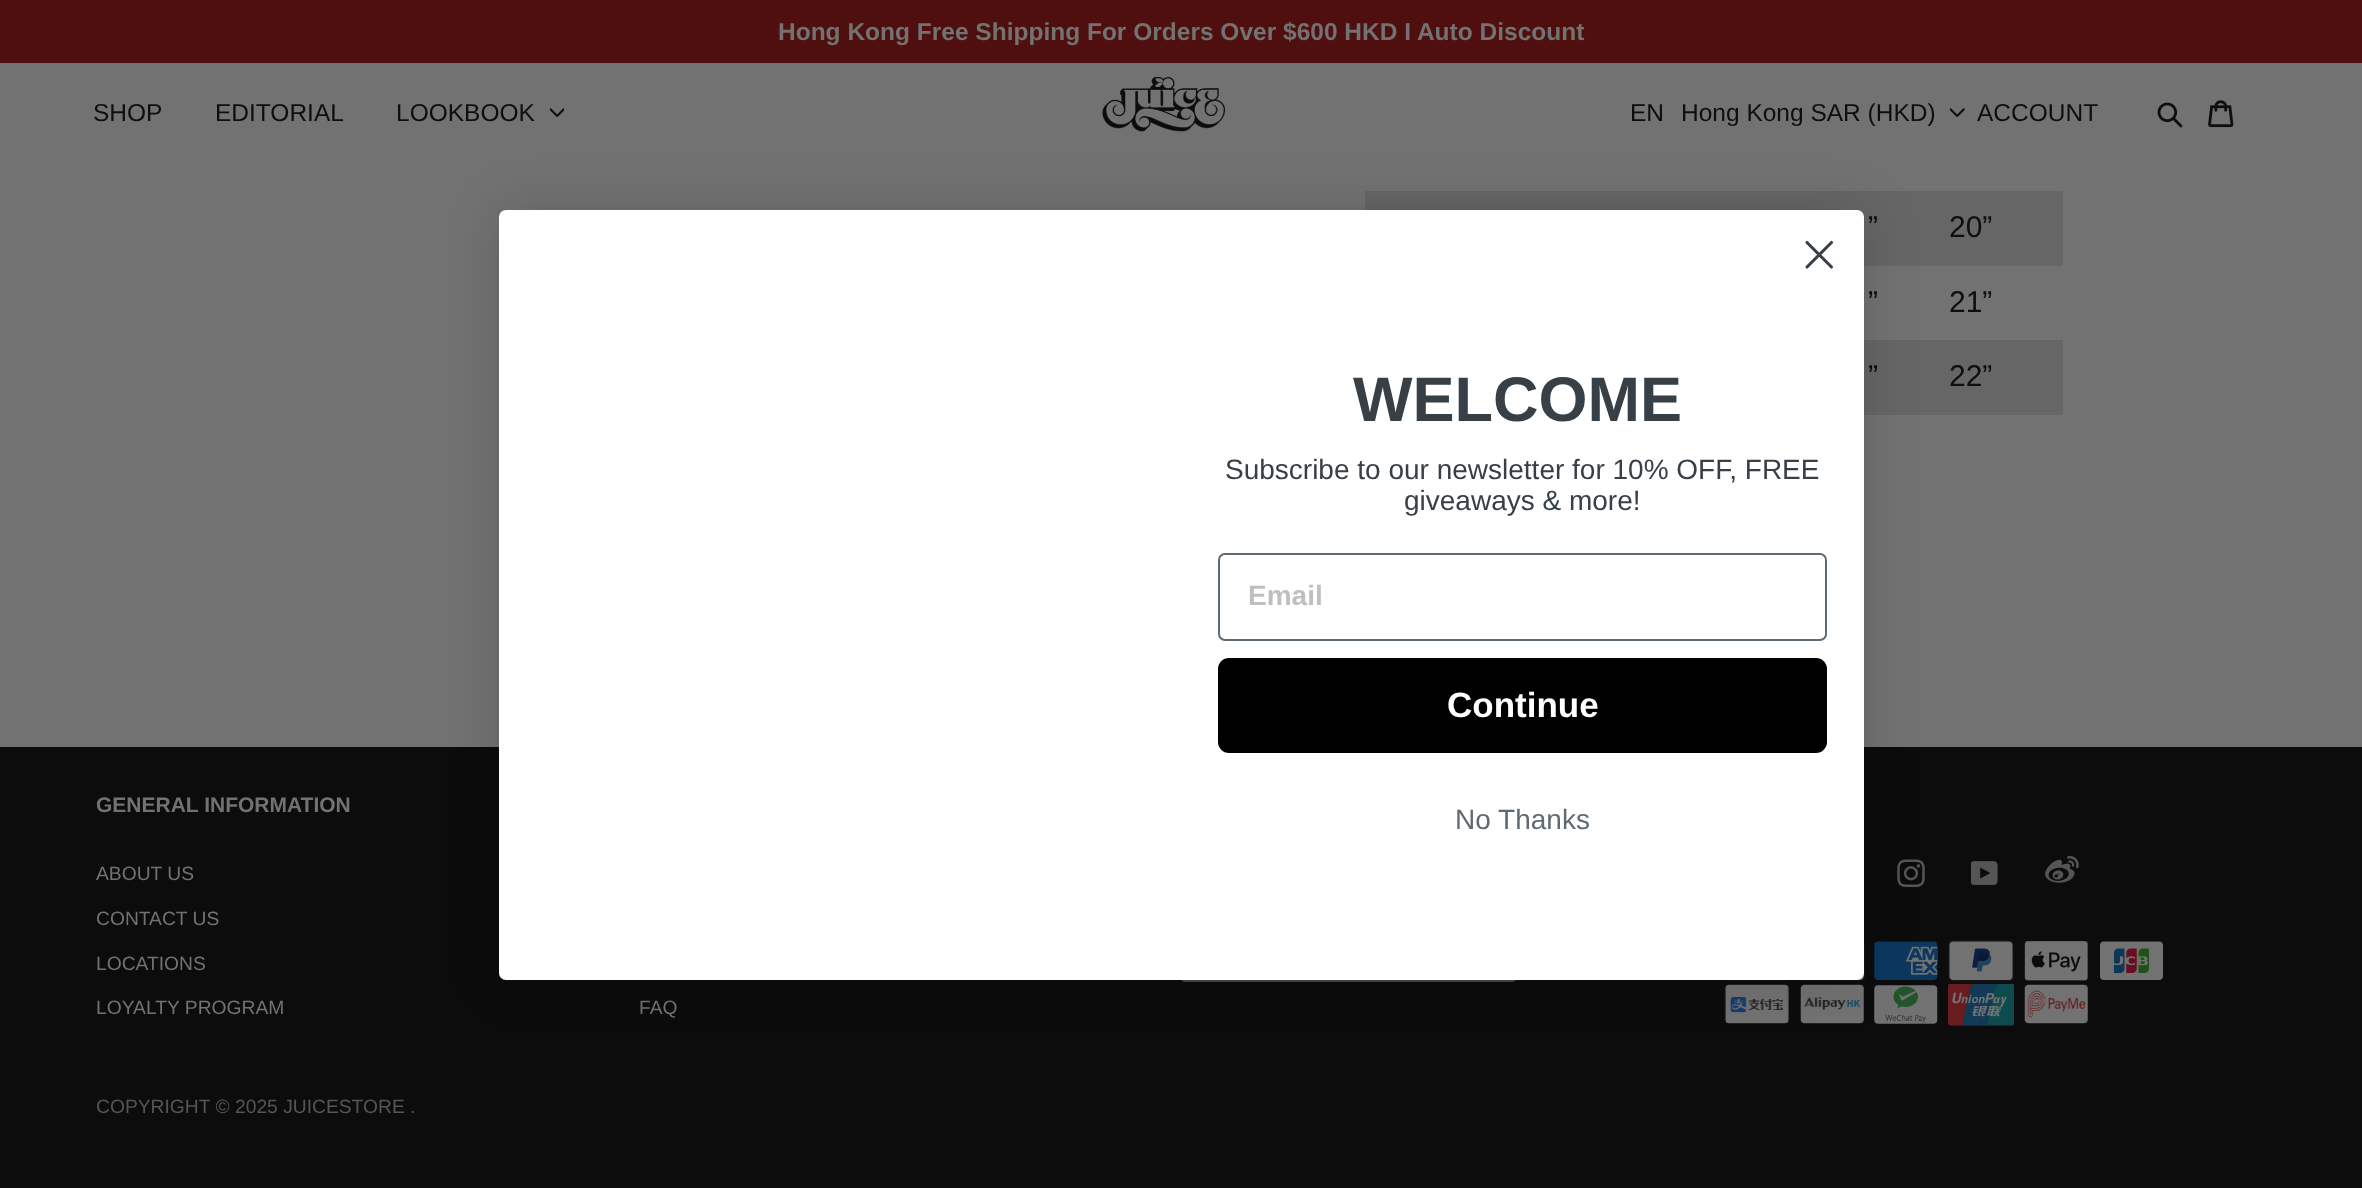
async function draw(canvas) {
	canvas.width = 2362;
	canvas.height = 1188;
	const c = canvas.getContext('2d');
	c.miterLimit = 4;
	c.fontKerning = 'normal';
	async function loadImage(src) {
		const img = new Image();
		img.src = src;
		await img.decode();
		return img;
	}

	c.fillStyle = '#727272';
	c.fillRect(0, 0, 2362, 1188);
	c.fillStyle = '#500f0f';
	c.fillRect(0, 0, 2362, 63);
	c.font = 'bold 24.5px Liberation Sans';
	c.fillStyle = '#727272';
	c.fillText('Hong Kong Free Shipping For Orders Over $600 HKD I Auto Discount', 778, 40);
	c.font = '24.5px Liberation Sans';
	c.fillStyle = '#120d0d';
	for (const [text, x, y] of [
		['SHOP', 93, 121],
		['EDITORIAL', 215, 121],
		['LOOKBOOK', 396, 121],
	]) {
		c.fillText(text, x, y);
	}
	c.drawImage(await loadImage('img1.png'), 550, 108, 14, 9);
	c.drawImage(await loadImage('img2.png'), 1102, 77, 123, 55);
	c.fillStyle = '#0c0c0c';
	c.fillText('EN', 1630, 121);
	c.fillStyle = '#120d0d';
	c.fillText('Hong Kong SAR (HKD)', 1681, 121);
	c.drawImage(await loadImage('img3.png'), 1950, 108, 15, 9);
	c.fillText('ACCOUNT', 1977, 121);
	c.drawImage(await loadImage('img4.png'), 2157, 102, 26, 26);
	c.drawImage(await loadImage('img5.png'), 2208, 100, 26, 28);
	c.fillStyle = '#666';
	c.fillRect(1365, 191, 399, 19);
	c.fillRect(1764, 191, 299, 75);
	c.font = '30px Liberation Sans';
	c.fillStyle = '#120d0d';
	for (const [text, x, y] of [
		['”', 1868, 237],
		['20”', 1949, 237],
		['”', 1868, 312],
		['21”', 1949, 312],
	]) {
		c.fillText(text, x, y);
	}
	c.fillStyle = '#666';
	c.fillRect(1864, 340, 199, 75);
	c.fillStyle = '#120d0d';
	c.fillText('”', 1868, 386);
	c.fillText('22”', 1949, 386);
	c.fillStyle = '#0c0c0c';
	c.fillRect(0, 747, 2362, 441);
	c.font = 'bold 21px Liberation Sans';
	c.fillStyle = '#727272';
	c.fillText('GENERAL INFORMATION', 96, 812);
	c.font = '19.25px Liberation Sans';
	for (const [text, x, y] of [
		['ABOUT US', 96, 880],
		['CONTACT US', 96, 925],
		['LOCATIONS', 96, 970],
		['LOYALTY PROGRAM', 96, 1014],
		['FAQ', 639, 1014],
	]) {
		c.fillText(text, x, y);
	}
	c.beginPath();
	c.roundRect(1182, 916, 333, 65, 3);
	c.strokeStyle = '#474848';
	c.lineWidth = 2;
	c.stroke();
	c.drawImage(await loadImage('img6.png'), 1897, 859, 28, 28);
	c.drawImage(await loadImage('img7.png'), 1971, 861, 27, 24);
	c.drawImage(await loadImage('img8.png'), 2045, 856, 34, 27);
	c.drawImage(await loadImage('img9.png'), 1725, 980, 64, 2);
	c.drawImage(await loadImage('img10.png'), 1801, 942, 65, 40);
	c.drawImage(await loadImage('img11.png'), 1874, 941, 64, 39);
	c.drawImage(await loadImage('img12.png'), 1948, 940, 66, 42);
	c.drawImage(await loadImage('img13.png'), 2024, 941, 64, 40);
	c.drawImage(await loadImage('img14.png'), 2100, 941, 63, 39);
	c.drawImage(await loadImage('img15.png'), 1724, 984, 65, 40);
	c.drawImage(await loadImage('img16.png'), 1799, 984, 66, 40);
	c.drawImage(await loadImage('img17.png'), 1874, 985, 64, 39);
	c.drawImage(await loadImage('img18.png'), 1948, 984, 66, 42);
	c.drawImage(await loadImage('img19.png'), 2023, 984, 66, 40);
	c.fillStyle = '#565555';
	c.fillText('COPYRIGHT © 2025 JUICESTORE .', 96, 1113);
	c.fillStyle = '#00000026';
	c.filter = 'blur(26px)';
	c.beginPath();
	c.roundRect(499, 210, 1365, 770, 7);
	c.fill();
	c.filter = 'none';
	c.fillStyle = '#fff';
	c.beginPath();
	c.roundRect(499, 210, 1365, 770, 7);
	c.fill();
	c.beginPath();
	c.moveTo(1807, 242.5);
	c.lineTo(1831.5, 267);
	c.moveTo(1807, 267);
	c.lineTo(1831.5, 242.5);
	c.closePath();
	c.strokeStyle = '#373f47';
	c.lineWidth = 3.1;
	c.lineCap = 'round';
	c.lineJoin = 'round';
	c.stroke();
	c.font = 'bold 63px Liberation Sans';
	c.fillStyle = '#373f47';
	c.fillText('WELCOME', 1353, 421);
	c.font = '28px Liberation Sans';
	c.fillText('Subscribe to our newsletter for 10% OFF, FREE', 1225, 479);
	c.fillText('giveaways & more!', 1404, 510);
	c.beginPath();
	c.roundRect(1219, 554, 607, 86, 6);
	c.strokeStyle = '#606a72';
	c.lineWidth = 2;
	c.lineJoin = 'miter';
	c.stroke();
	c.font = 'bold 28px Liberation Sans';
	c.fillStyle = '#bfbfc0';
	c.fillText('Email', 1248, 605);
	c.fillStyle = '#000';
	c.beginPath();
	c.roundRect(1218, 658, 609, 95, 11);
	c.fill();
	c.font = 'bold 35px Liberation Sans';
	c.fillStyle = '#fff';
	c.fillText('Continue', 1447, 717);
	c.font = '28px Liberation Sans';
	c.fillStyle = '#606a72';
	c.fillText('No Thanks', 1455, 829);
}

draw(document.querySelector('canvas'));
